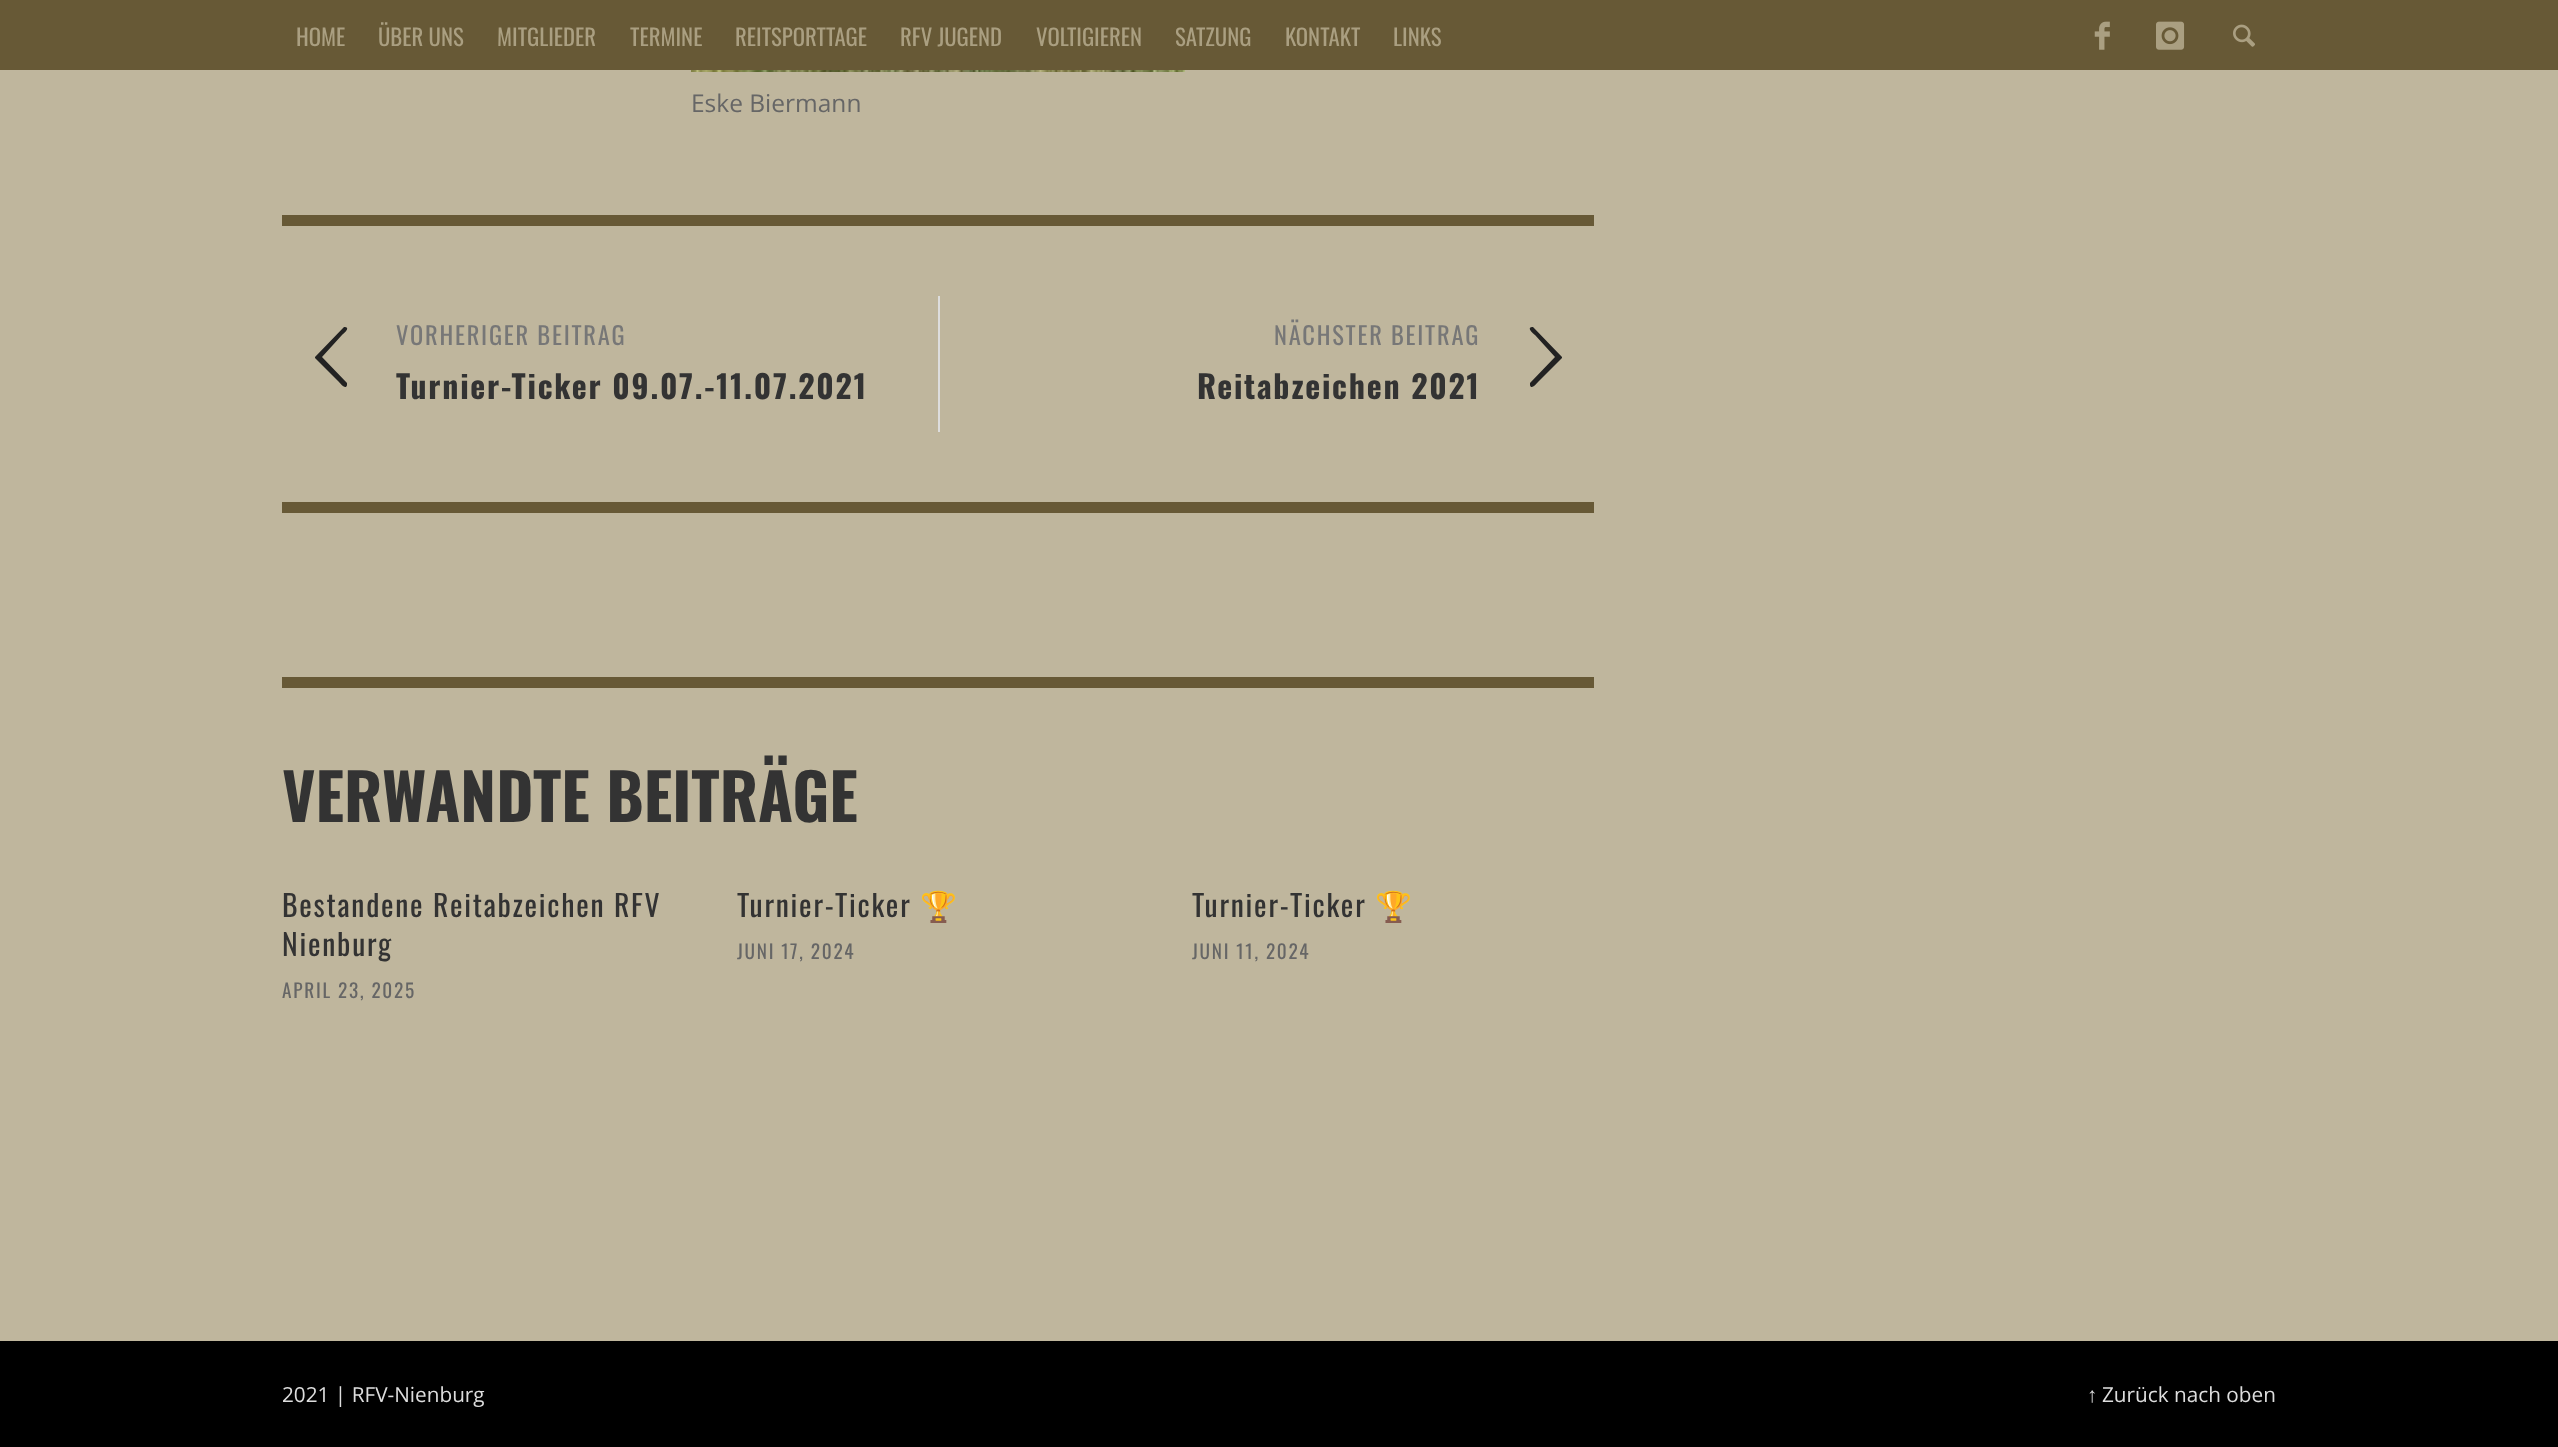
async function draw(canvas) {
	canvas.width = 2558;
	canvas.height = 1447;
	const c = canvas.getContext('2d');
	c.miterLimit = 4;
	c.fontKerning = 'normal';
	async function loadImage(src) {
		const img = new Image();
		img.src = src;
		await img.decode();
		return img;
	}

	c.fillStyle = '#bfb69d';
	c.fillRect(0, 0, 2558, 1447);
	c.fillStyle = '#675936';
	c.fillRect(0, 0, 2558, 70);
	c.font = '22.75px Oswald';
	c.fillStyle = '#aa9f81';
	for (const [text, x, y] of [
		['HOME', 296, 46],
		['ÜBER UNS', 378, 46],
		['MITGLIEDER', 497, 46],
		['TERMINE', 630, 46],
		['REITSPORTTAGE', 735, 46],
		['RFV JUGEND', 900, 46],
		['VOLTIGIEREN', 1036, 46],
		['SATZUNG', 1175, 46],
		['KONTAKT', 1285, 46],
		['LINKS', 1393, 46],
	]) {
		c.fillText(text, x, y);
	}
	c.drawImage(await loadImage('img1.png'), 2094, 21, 16, 29);
	c.drawImage(await loadImage('img2.png'), 2156, 21, 29, 29);
	c.drawImage(await loadImage('img3.png'), 2233, 24, 22, 23);
	c.drawImage(await loadImage('img4.png'), 691, 70, 494, 2);
	c.font = '24.5px Open Sans';
	c.fillStyle = '#666';
	c.fillText('Eske Biermann', 691, 112);
	c.fillStyle = '#675936';
	c.fillRect(282, 215, 1312, 11);
	c.fillStyle = '#222';
	c.beginPath();
	c.moveTo(347, 383);
	c.lineTo(347, 385);
	c.bezierCurveTo(346, 391, 339, 382, 339, 382);
	c.lineTo(315, 358);
	c.lineTo(315, 357);
	c.lineTo(344, 327);
	c.lineTo(345, 327);
	c.bezierCurveTo(351, 328, 343, 334, 342, 335);
	c.lineTo(322, 357);
	c.closePath();
	c.fill();
	c.letterSpacing = '1.75px';
	c.font = '24.5px Oswald';
	c.fillStyle = '#777';
	c.fillText('VORHERIGER BEITRAG', 396, 345);
	c.font = 'bold 31.8px Oswald';
	c.fillStyle = '#333';
	c.fillText('Turnier-Ticker 09.07.-11.07.2021', 396, 399);
	c.fillStyle = '#ddd';
	c.fillRect(938, 296, 2, 136);
	c.font = '24.5px Oswald';
	c.fillStyle = '#777';
	c.fillText('NÄCHSTER BEITRAG', 1274, 345);
	c.font = 'bold 31.8px Oswald';
	c.fillStyle = '#333';
	c.fillText('Reitabzeichen 2021', 1197, 399);
	c.fillStyle = '#222';
	c.beginPath();
	c.moveTo(1530, 383);
	c.lineTo(1555, 357);
	c.lineTo(1535, 335);
	c.bezierCurveTo(1534, 334, 1526, 328, 1532, 327);
	c.lineTo(1533, 327);
	c.lineTo(1562, 357);
	c.lineTo(1562, 358);
	c.lineTo(1538, 382);
	c.bezierCurveTo(1538, 382, 1531, 391, 1530, 385);
	c.closePath();
	c.fill();
	c.fillStyle = '#675936';
	c.fillRect(282, 502, 1312, 11);
	c.fillRect(282, 677, 1312, 11);
	c.letterSpacing = '0px';
	c.font = 'bold 63.75px Oswald';
	c.fillStyle = '#333';
	c.fillText('VERWANDTE BEITRÄGE', 282, 822);
	c.letterSpacing = '1.75px';
	c.font = '29.75px Oswald';
	c.fillText('Bestandene Reitabzeichen RFV', 282, 917);
	c.fillText('Nienburg', 282, 956);
	c.font = '19.25px Oswald';
	c.fillStyle = '#666';
	c.fillText('APRIL 23, 2025', 282, 998);
	c.font = '29.75px Oswald';
	c.fillStyle = '#333';
	c.fillText('Turnier-Ticker', 737, 917);
	c.font = '29.75px Noto Color Emoji';
	c.fillText('🏆', 920, 917);
	c.font = '19.25px Oswald';
	c.fillStyle = '#666';
	c.fillText('JUNI 17, 2024', 737, 959);
	c.font = '29.75px Oswald';
	c.fillStyle = '#333';
	c.fillText('Turnier-Ticker', 1192, 917);
	c.font = '29.75px Noto Color Emoji';
	c.fillText('🏆', 1375, 917);
	c.font = '19.25px Oswald';
	c.fillStyle = '#666';
	c.fillText('JUNI 11, 2024', 1192, 959);
	c.fillStyle = '#000';
	c.fillRect(0, 1341, 2558, 106);
	c.letterSpacing = '0px';
	c.font = '20.75px Open Sans';
	c.fillStyle = '#ddd';
	c.fillText('2021 | RFV-Nienburg', 282, 1402);
	c.font = '20.75px Liberation Sans';
	c.fillText('↑', 2087, 1402);
	c.font = '20.75px Open Sans';
	c.fillText('Zurück nach oben', 2102, 1402);
}

draw(document.querySelector('canvas'));
